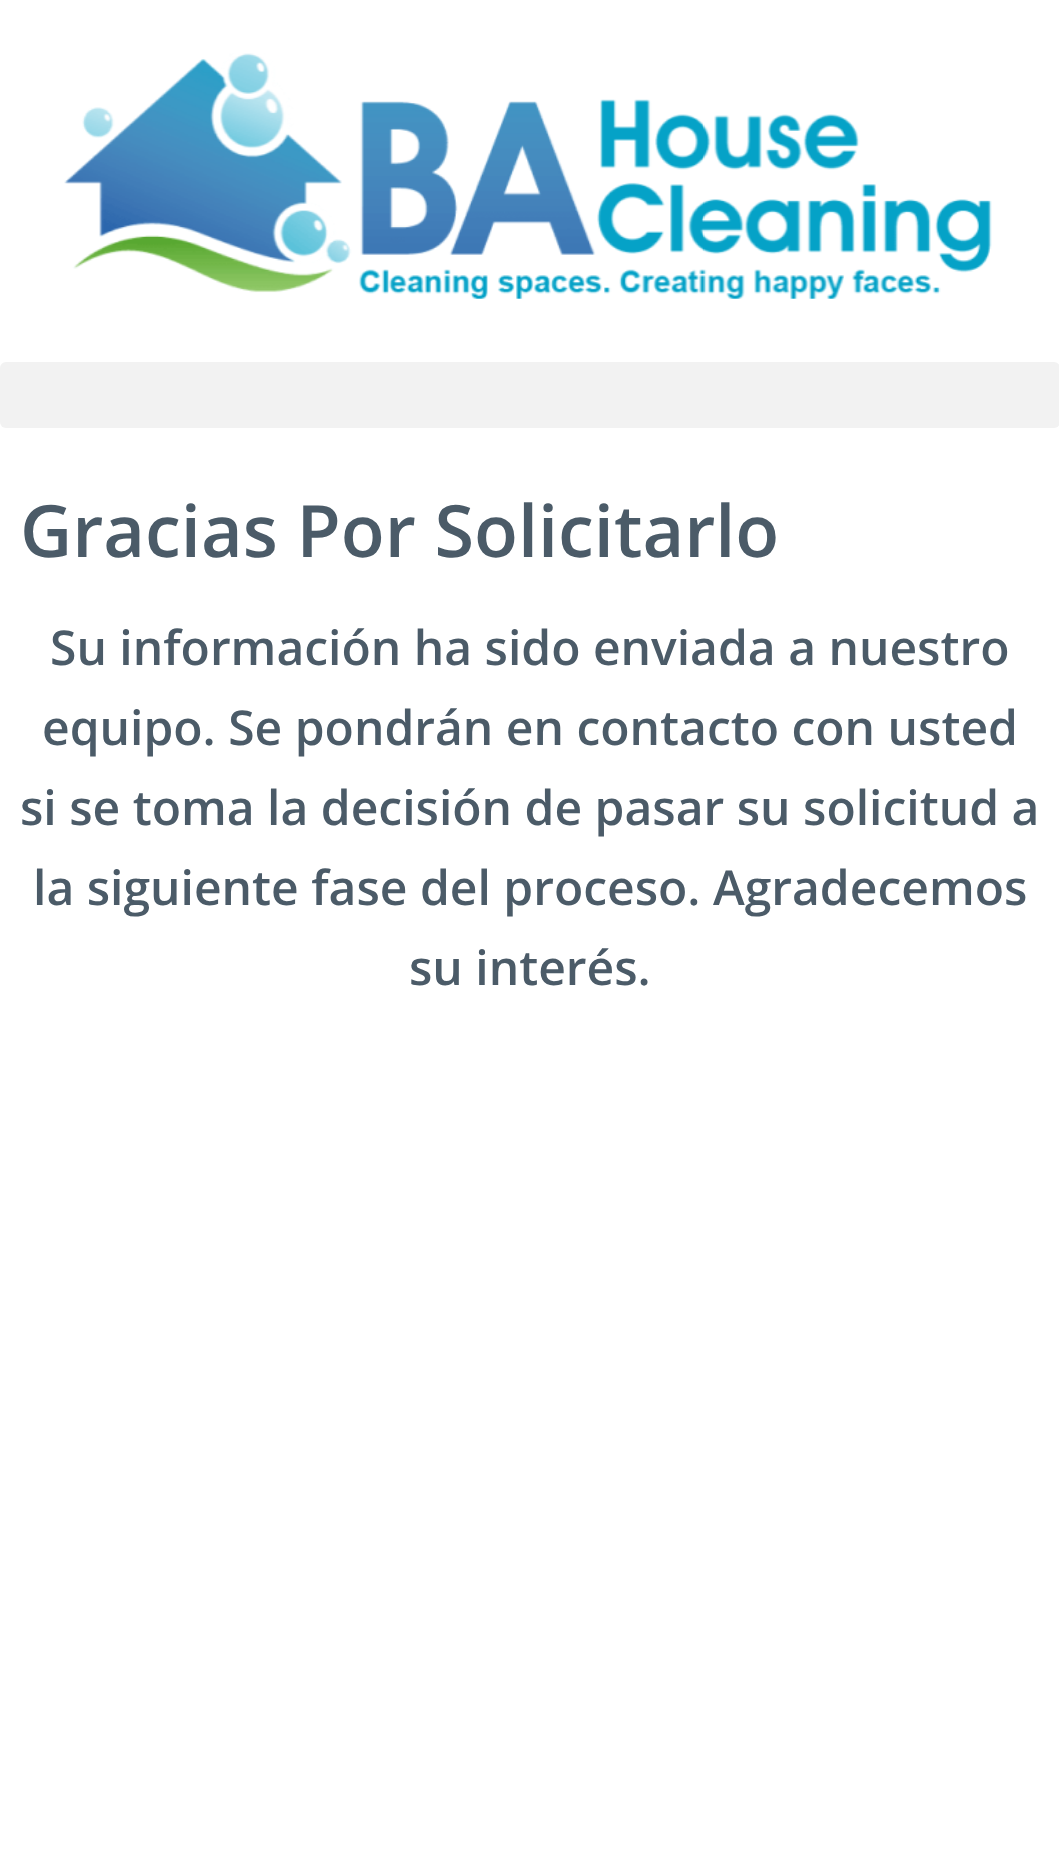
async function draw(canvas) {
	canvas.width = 1059;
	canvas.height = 1868;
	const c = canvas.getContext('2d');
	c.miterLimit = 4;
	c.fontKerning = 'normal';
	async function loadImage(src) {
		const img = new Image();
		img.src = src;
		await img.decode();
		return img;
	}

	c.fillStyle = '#fff';
	c.fillRect(0, 0, 1059, 1868);
	c.drawImage(await loadImage('img1.png'), 64, 53, 928, 246);
	c.fillStyle = '#f2f2f2';
	c.beginPath();
	c.roundRect(0, 362, 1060, 66, 6);
	c.fill();
	c.font = '600 72px Open Sans';
	c.fillStyle = '#4b5b68';
	c.fillText('Gracias Por Solicitarlo', 20, 557);
	c.font = '600 48px Open Sans';
	for (const [text, x, y] of [
		['Su información ha sido enviada a nuestro', 50, 665],
		['equipo. Se pondrán en contacto con usted', 42, 745],
		['si se toma la decisión de pasar su solicitud a', 20, 825],
		['la siguiente fase del proceso. Agradecemos', 33, 905],
		['su interés.', 409, 985],
	]) {
		c.fillText(text, x, y);
	}
}

draw(document.querySelector('canvas'));
